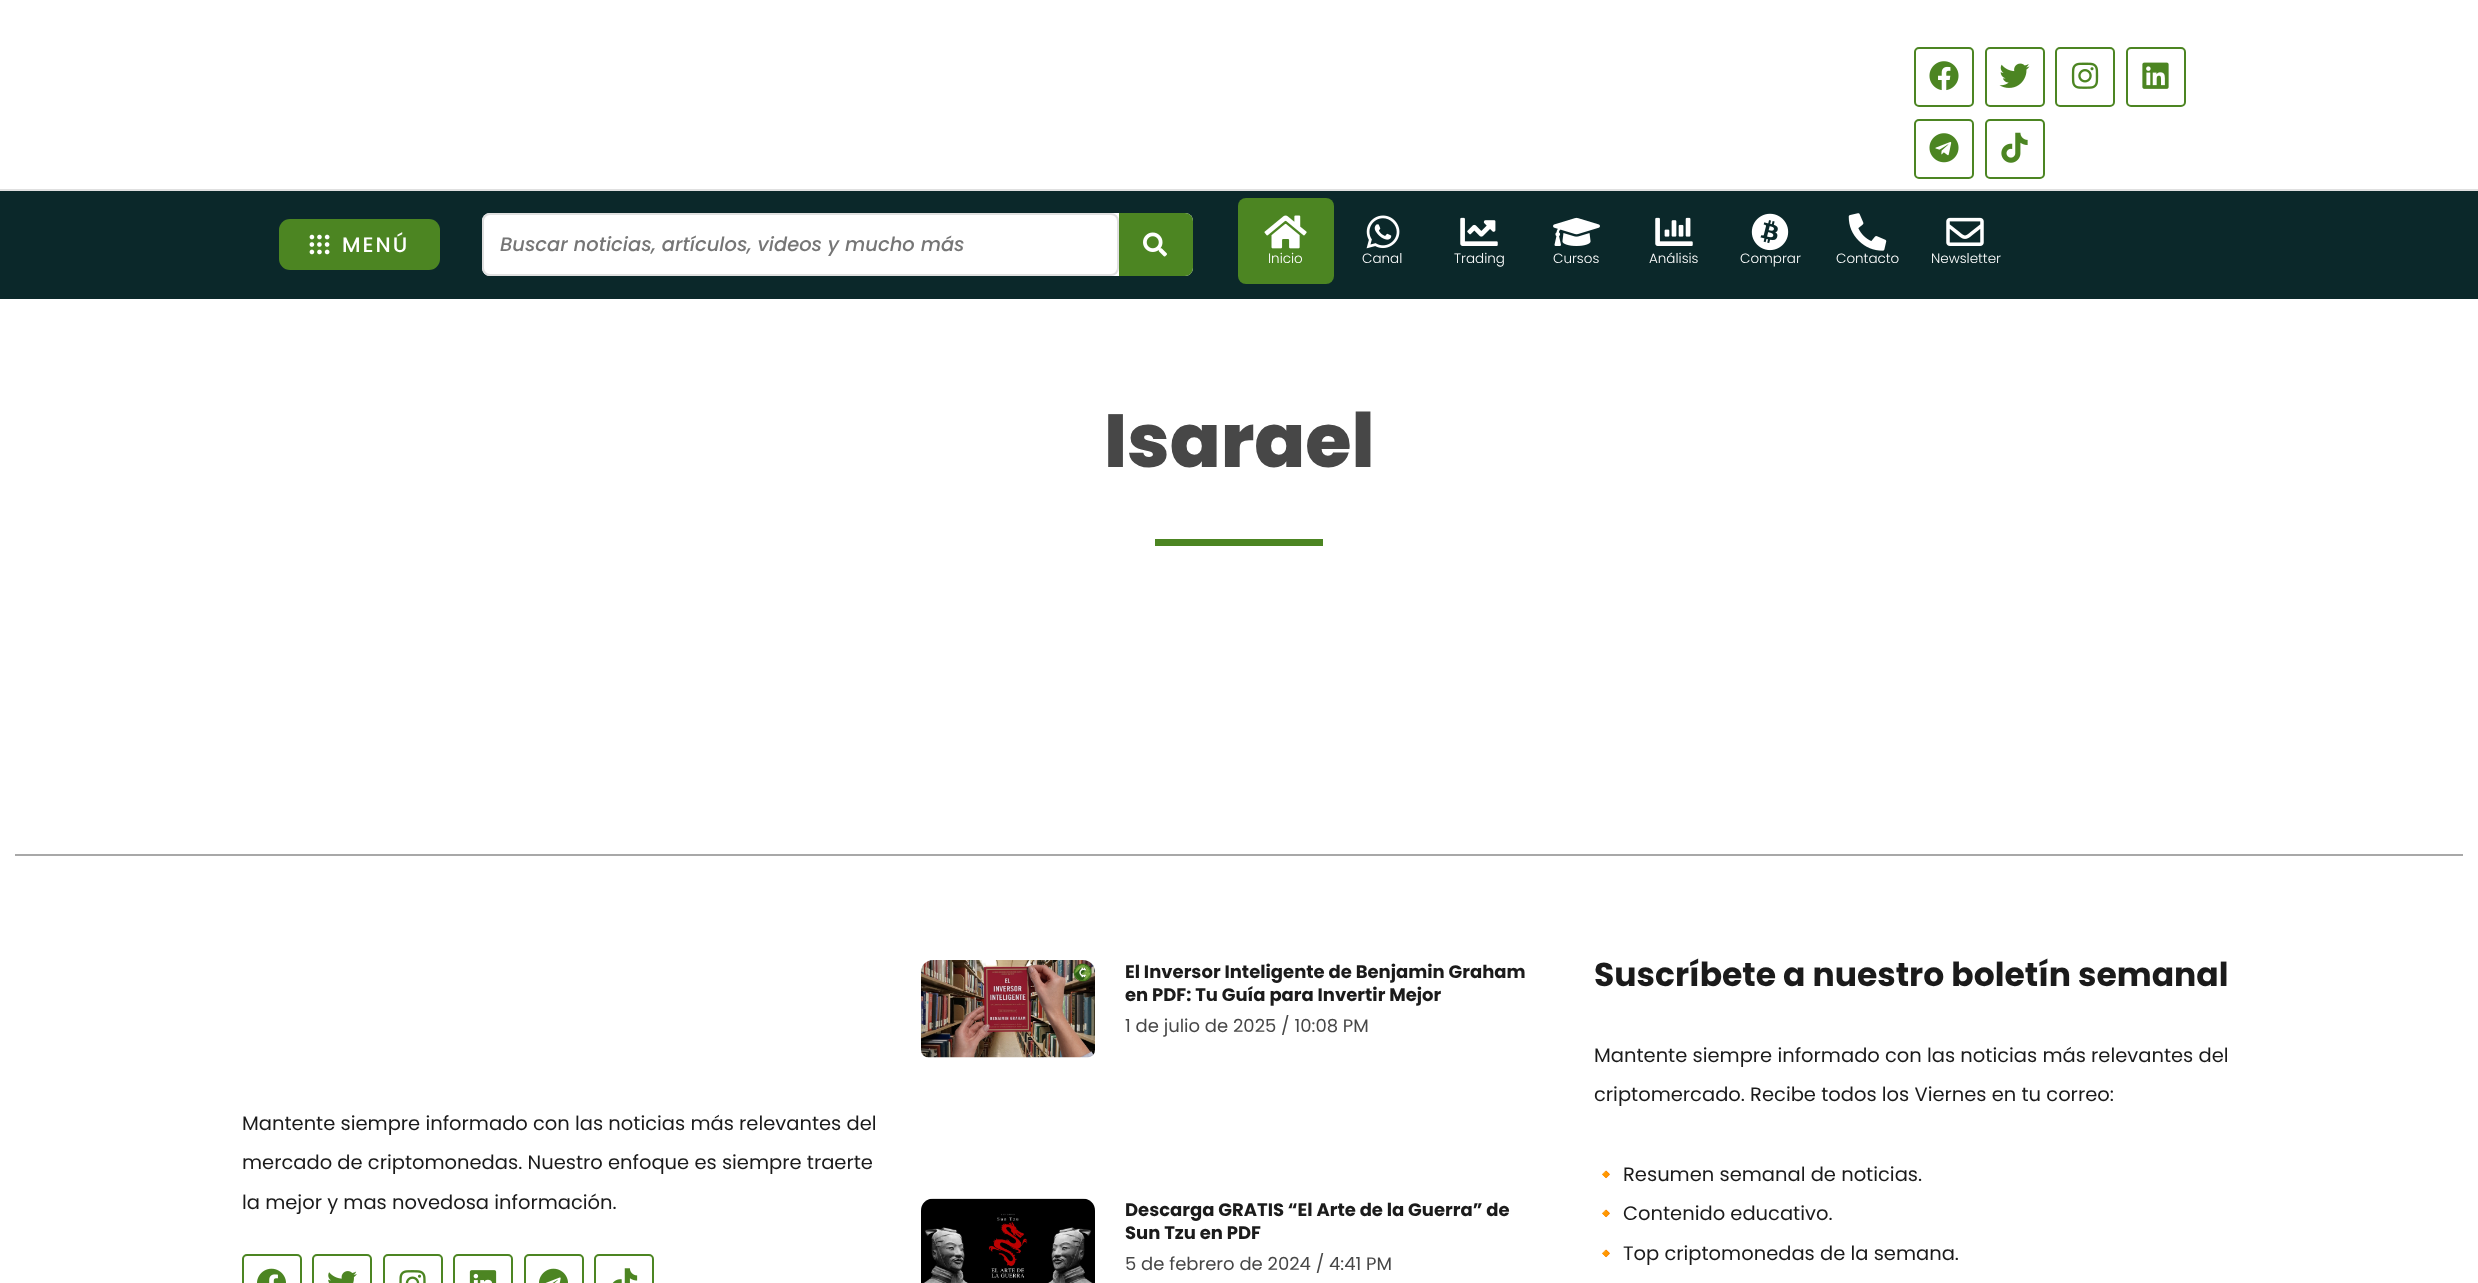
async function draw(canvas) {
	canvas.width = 2478;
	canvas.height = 1283;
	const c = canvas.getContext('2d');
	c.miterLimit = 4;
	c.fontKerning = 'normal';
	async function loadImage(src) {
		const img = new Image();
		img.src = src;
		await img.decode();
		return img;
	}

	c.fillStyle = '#fff';
	c.fillRect(0, 0, 2478, 1283);
	c.beginPath();
	c.roundRect(1915, 48, 58, 58, 4);
	c.strokeStyle = '#4c8522';
	c.lineWidth = 2;
	c.stroke();
	c.drawImage(await loadImage('img1.png'), 1929, 61, 30, 30);
	c.beginPath();
	c.roundRect(1986, 48, 58, 58, 4);
	c.stroke();
	c.drawImage(await loadImage('img2.png'), 1999, 63, 31, 25);
	c.beginPath();
	c.roundRect(2056, 48, 58, 58, 4);
	c.stroke();
	c.drawImage(await loadImage('img3.png'), 2071, 62, 28, 27);
	c.beginPath();
	c.roundRect(2127, 48, 58, 58, 4);
	c.stroke();
	c.drawImage(await loadImage('img4.png'), 2142, 62, 27, 27);
	c.beginPath();
	c.roundRect(1915, 120, 58, 58, 4);
	c.stroke();
	c.drawImage(await loadImage('img5.png'), 1929, 133, 30, 30);
	c.beginPath();
	c.roundRect(1986, 120, 58, 58, 4);
	c.stroke();
	c.drawImage(await loadImage('img6.png'), 2001, 132, 27, 31);
	c.fillStyle = '#0b282a';
	c.fillRect(0, 191, 2478, 108);
	c.fillStyle = '#e0e0e0';
	c.fillRect(0, 189, 2478, 2);
	c.fillStyle = '#4c8522';
	c.beginPath();
	c.roundRect(279, 219, 161, 51, 11);
	c.fill();
	c.drawImage(await loadImage('img7.png'), 309, 234, 21, 21);
	c.letterSpacing = '2px';
	c.font = '500 21px Poppins';
	c.fillStyle = '#fff';
	c.fillText('MENÚ', 342, 252);
	c.beginPath();
	c.roundRect(482, 213, 711, 63, 8);
	c.fill();
	c.beginPath();
	c.roundRect(483, 214, 635, 61, 7);
	c.strokeStyle = '#e0e0e0';
	c.stroke();
	c.letterSpacing = '0px';
	c.font = 'italic 500 19.5px Poppins';
	c.fillStyle = '#767676';
	c.fillText('Buscar noticias, artículos, videos y mucho más', 500, 251);
	c.fillStyle = '#4c8522';
	c.beginPath();
	c.roundRect(1119, 213, 74, 63, [0, 8, 8, 0]);
	c.fill();
	c.drawImage(await loadImage('img8.png'), 1143, 232, 24, 25);
	c.beginPath();
	c.roundRect(1238, 198, 96, 86, 8);
	c.fill();
	c.drawImage(await loadImage('img9.png'), 1264, 215, 43, 34);
	c.font = '300 13.5px Poppins';
	c.fillStyle = '#fff';
	c.fillText('Inicio', 1268, 263);
	c.drawImage(await loadImage('img10.png'), 1366, 215, 34, 34);
	c.fillText('Canal', 1362, 263);
	c.drawImage(await loadImage('img11.png'), 1460, 217, 38, 29);
	c.fillText('Trading', 1454, 263);
	c.drawImage(await loadImage('img12.png'), 1553, 217, 47, 29);
	c.fillText('Cursos', 1553, 263);
	c.drawImage(await loadImage('img13.png'), 1655, 217, 38, 29);
	c.fillText('Análisis', 1649, 263);
	c.drawImage(await loadImage('img14.png'), 1751, 213, 38, 38);
	c.fillText('Comprar', 1740, 263);
	c.drawImage(await loadImage('img15.png'), 1848, 213, 39, 38);
	c.fillText('Contacto', 1836, 263);
	c.drawImage(await loadImage('img16.png'), 1946, 217, 38, 29);
	c.fillText('Newsletter', 1931, 263);
	c.font = '800 75px Poppins';
	c.fillStyle = '#474747';
	c.fillText('Isarael', 1104, 467);
	c.fillStyle = '#4c8522';
	c.fillRect(1155, 539, 168, 7);
	c.fillStyle = '#a8a8a8';
	c.fillRect(15, 854, 2448, 2);
	c.font = '19.5px Poppins';
	c.fillStyle = '#1b1b1b';
	for (const [text, x, y] of [
		['Mantente siempre informado con las noticias más relevantes del', 242, 1130],
		['mercado de criptomonedas. Nuestro enfoque es siempre traerte', 242, 1169],
		['la mejor y mas novedosa información.', 242, 1209],
	]) {
		c.fillText(text, x, y);
	}
	c.beginPath();
	c.roundRect(243, 1255, 58, 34, 4);
	c.strokeStyle = '#4c8522';
	c.stroke();
	c.drawImage(await loadImage('img17.png'), 257, 1268, 29, 15);
	c.beginPath();
	c.roundRect(313, 1255, 58, 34, 4);
	c.stroke();
	c.drawImage(await loadImage('img18.png'), 328, 1271, 29, 12);
	c.beginPath();
	c.roundRect(384, 1255, 58, 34, 4);
	c.stroke();
	c.drawImage(await loadImage('img19.png'), 399, 1270, 27, 13);
	c.beginPath();
	c.roundRect(454, 1255, 58, 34, 4);
	c.stroke();
	c.drawImage(await loadImage('img20.png'), 469, 1270, 28, 13);
	c.beginPath();
	c.roundRect(525, 1255, 58, 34, 4);
	c.stroke();
	c.drawImage(await loadImage('img21.png'), 539, 1268, 29, 15);
	c.beginPath();
	c.roundRect(595, 1255, 58, 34, 4);
	c.stroke();
	c.drawImage(await loadImage('img22.png'), 612, 1268, 26, 15);
	c.drawImage(await loadImage('img23.png'), 921, 960, 174, 98);
	c.font = 'bold 18px Poppins';
	c.fillText('El Inversor Inteligente de Benjamin Graham', 1125, 978);
	c.fillText('en PDF: Tu Guía para Invertir Mejor', 1125, 1001);
	c.font = '18px Poppins';
	c.fillStyle = '#474747';
	c.fillText('1 de julio de 2025 / 10:08 PM', 1125, 1032);
	c.drawImage(await loadImage('img24.png'), 921, 1198, 174, 85);
	c.font = 'bold 18px Poppins';
	c.fillStyle = '#1b1b1b';
	c.fillText('Descarga GRATIS “El Arte de la Guerra” de', 1125, 1216);
	c.fillText('Sun Tzu en PDF', 1125, 1239);
	c.font = '18px Poppins';
	c.fillStyle = '#474747';
	c.fillText('5 de febrero de 2024 / 4:41 PM', 1125, 1270);
	c.font = 'bold 33px Poppins';
	c.fillStyle = '#1b1b1b';
	c.fillText('Suscríbete a nuestro boletín semanal', 1594, 986);
	c.font = '19.5px Poppins';
	c.fillText('Mantente siempre informado con las noticias más relevantes del', 1594, 1062);
	c.fillText('criptomercado. Recibe todos los Viernes en tu correo:', 1594, 1101);
	c.font = '19.5px Noto Color Emoji';
	c.fillText('🔸', 1594, 1181);
	c.font = '19.5px Poppins';
	c.fillText('Resumen semanal de noticias.', 1623, 1181);
	c.font = '19.5px Noto Color Emoji';
	c.fillText('🔸', 1594, 1220);
	c.font = '19.5px Poppins';
	c.fillText('Contenido educativo.', 1623, 1220);
	c.font = '19.5px Noto Color Emoji';
	c.fillText('🔸', 1594, 1260);
	c.font = '19.5px Poppins';
	c.fillText('Top criptomonedas de la semana.', 1623, 1260);
}

draw(document.querySelector('canvas'));
